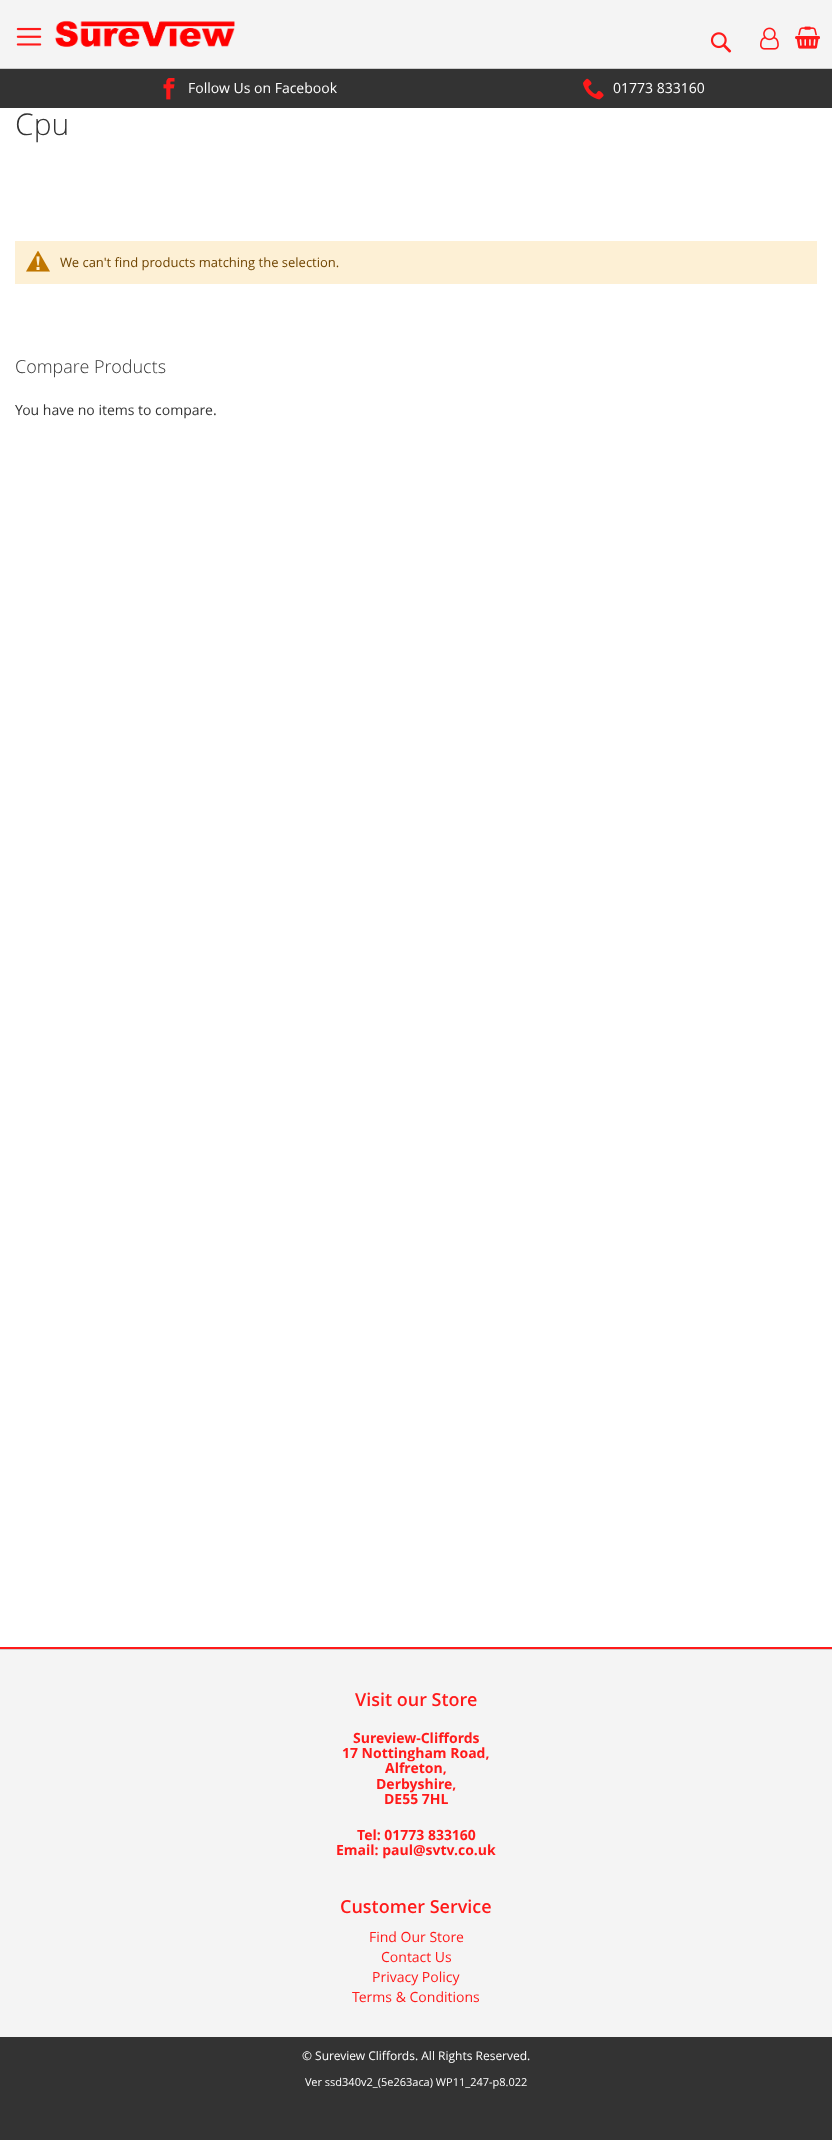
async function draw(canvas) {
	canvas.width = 832;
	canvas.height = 2140;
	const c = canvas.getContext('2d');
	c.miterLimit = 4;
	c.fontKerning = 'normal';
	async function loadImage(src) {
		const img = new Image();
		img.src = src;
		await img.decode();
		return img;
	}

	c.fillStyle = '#fff';
	c.fillRect(0, 0, 832, 2140);
	c.fillStyle = '#f4f4f4';
	c.fillRect(0, 0, 832, 68);
	c.drawImage(await loadImage('img1.png'), 16, 27, 26, 19);
	c.drawImage(await loadImage('img2.png'), 55, 20, 180, 27);
	c.drawImage(await loadImage('img3.png'), 760, 27, 19, 23);
	c.drawImage(await loadImage('img4.png'), 795, 26, 25, 23);
	c.drawImage(await loadImage('img5.png'), 710, 32, 22, 21);
	c.fillStyle = '#ccc';
	c.fillRect(0, 68, 832, 1);
	c.fillStyle = '#333';
	c.fillRect(0, 69, 832, 39);
	c.drawImage(await loadImage('img6.png'), 163, 78, 12, 22);
	c.font = '14px Open Sans';
	c.fillStyle = '#fff';
	c.fillText('Follow Us on Facebook', 188, 93);
	c.drawImage(await loadImage('img7.png'), 583, 78, 21, 22);
	c.fillText('01773 833160', 613, 93);
	c.font = '300 30px Open Sans';
	c.fillStyle = '#333';
	c.fillText('Cpu', 15, 135);
	c.fillStyle = '#fdf0d5';
	c.fillRect(15, 241, 802, 43);
	c.drawImage(await loadImage('img8.png'), 26, 251, 24, 21);
	c.font = '13px Open Sans';
	c.fillStyle = '#6f4400';
	c.fillText('We can\'t find products matching the selection.', 60, 267);
	c.font = '300 18px Open Sans';
	c.fillStyle = '#333';
	c.fillText('Compare Products', 15, 373);
	c.font = '14px Open Sans';
	c.fillText('You have no items to compare.', 15, 415);
	for (const [x, y, w, h, color] of [
		[0, 1650, 832, 387, '#f4f4f4'],
		[0, 1647, 832, 2, '#ff1a1a'],
		[0, 1649, 832, 1, '#cecece'],
	]) {
		c.fillStyle = color;
		c.fillRect(x, y, w, h);
	}
	c.font = '600 18px Open Sans';
	c.fillStyle = '#ff1a1a';
	c.fillText('Visit our Store', 355, 1706);
	c.font = 'bold 14px Open Sans';
	for (const [text, x, y] of [
		['Sureview-Cliffords', 353, 1743],
		['17 Nottingham Road,', 342, 1758],
		['Alfreton,', 385, 1773],
		['Derbyshire,', 376, 1789],
		['DE55 7HL', 384, 1804],
		['Tel: 01773 833160', 357, 1840],
		['Email: paul@svtv.co.uk', 336, 1855],
	]) {
		c.fillText(text, x, y);
	}
	c.font = '600 18px Open Sans';
	c.fillText('Customer Service', 340, 1913);
	c.font = '14px Open Sans';
	for (const [text, x, y] of [
		['Find Our Store', 369, 1942],
		['Contact Us', 381, 1962],
		['Privacy Policy', 372, 1982],
		['Terms & Conditions', 352, 2002],
	]) {
		c.fillText(text, x, y);
	}
	c.fillStyle = '#333';
	c.fillRect(0, 2037, 832, 103);
	c.font = '12px Open Sans';
	c.fillStyle = '#fff';
	c.fillText('© Sureview Cliffords. All Rights Reserved.', 302, 2060);
	c.font = '11px Open Sans';
	c.fillText('Ver ssd340v2_(5e263aca) WP11_247-p8.022', 305, 2086);
}

draw(document.querySelector('canvas'));
